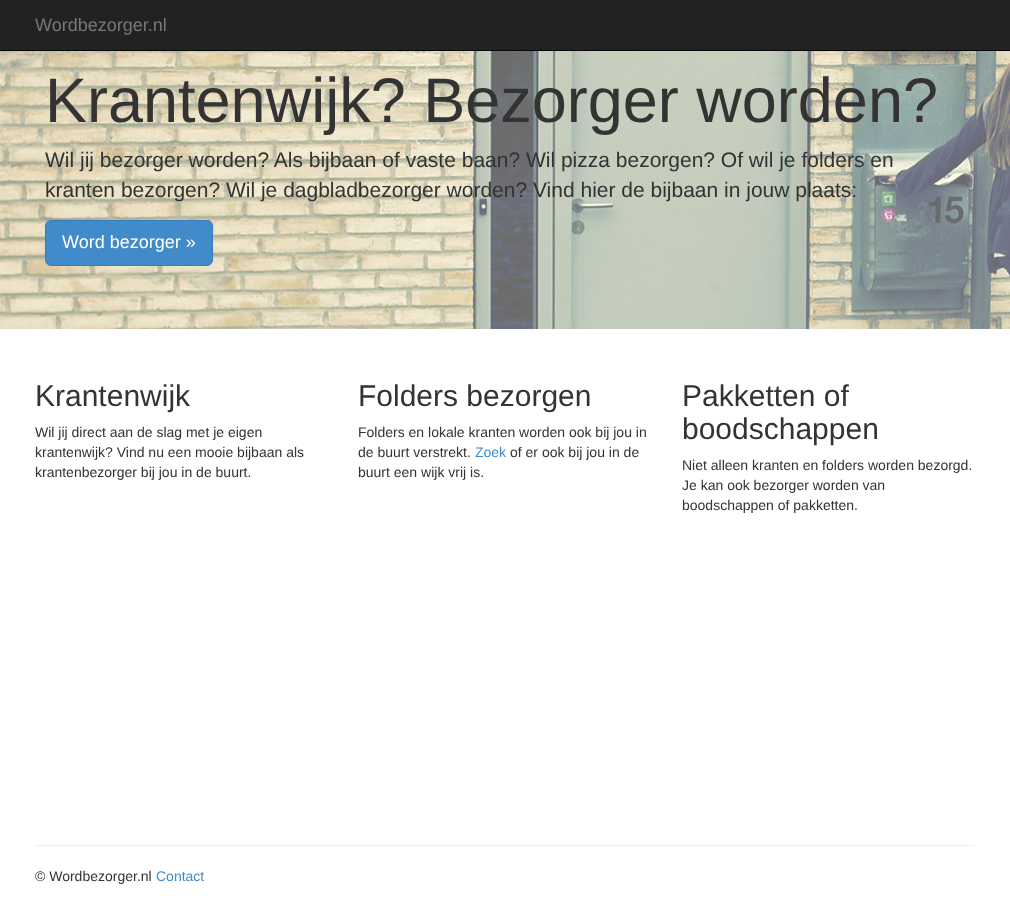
async function draw(canvas) {
	canvas.width = 1010;
	canvas.height = 916;
	const c = canvas.getContext('2d');
	c.miterLimit = 4;
	c.fontKerning = 'normal';
	async function loadImage(src) {
		const img = new Image();
		img.src = src;
		await img.decode();
		return img;
	}

	c.fillStyle = '#fff';
	c.fillRect(0, 0, 1010, 916);
	c.fillStyle = '#222';
	c.fillRect(0, 0, 1010, 50);
	c.fillStyle = '#080808';
	c.fillRect(0, 50, 1010, 1);
	c.font = '18px Liberation Sans';
	c.fillStyle = '#777';
	c.fillText('Wordbezorger.nl', 35, 31);
	c.drawImage(await loadImage('img1.png'), 0, 51, 1010, 278);
	c.font = '63px Liberation Sans';
	c.fillStyle = '#333';
	c.fillText('Krantenwijk? Bezorger worden?', 45, 122);
	c.font = '21px Liberation Sans';
	c.fillText('Wil jij bezorger worden? Als bijbaan of vaste baan? Wil pizza bezorgen? Of wil je folders en', 45, 167);
	c.fillText('kranten bezorgen? Wil je dagbladbezorger worden? Vind hier de bijbaan in jouw plaats:', 45, 197);
	c.fillStyle = '#428bca';
	c.beginPath();
	c.roundRect(45.5, 220.5, 167, 45, 5.5);
	c.fill();
	c.strokeStyle = '#357ebd';
	c.stroke();
	c.font = '18px Liberation Sans';
	c.fillStyle = '#fff';
	c.fillText('Word bezorger »', 62, 248);
	c.font = '30px Liberation Sans';
	c.fillStyle = '#333';
	c.fillText('Krantenwijk', 35, 406);
	c.font = '14px Liberation Sans';
	for (const [text, x, y] of [
		['Wil jij direct aan de slag met je eigen', 35, 437],
		['krantenwijk? Vind nu een mooie bijbaan als', 35, 457],
		['krantenbezorger bij jou in de buurt.', 35, 477],
	]) {
		c.fillText(text, x, y);
	}
	c.font = '30px Liberation Sans';
	c.fillText('Folders bezorgen', 358, 406);
	c.font = '14px Liberation Sans';
	c.fillText('Folders en lokale kranten worden ook bij jou in', 358, 437);
	c.fillText('de buurt verstrekt.', 358, 457);
	c.fillStyle = '#428bca';
	c.fillText('Zoek', 475, 457);
	c.fillStyle = '#333';
	c.fillText('of er ook bij jou in de', 510, 457);
	c.fillText('buurt een wijk vrij is.', 358, 477);
	c.font = '30px Liberation Sans';
	c.fillText('Pakketten of', 682, 406);
	c.fillText('boodschappen', 682, 439);
	c.font = '14px Liberation Sans';
	for (const [text, x, y] of [
		['Niet alleen kranten en folders worden bezorgd.', 682, 470],
		['Je kan ook bezorger worden van', 682, 490],
		['boodschappen of pakketten.', 682, 510],
	]) {
		c.fillText(text, x, y);
	}
	c.fillStyle = '#eee';
	c.fillRect(35, 845, 940, 1);
	c.fillStyle = '#333';
	c.fillText('© Wordbezorger.nl', 35, 881);
	c.fillStyle = '#428bca';
	c.fillText('Contact', 156, 881);
}

draw(document.querySelector('canvas'));
